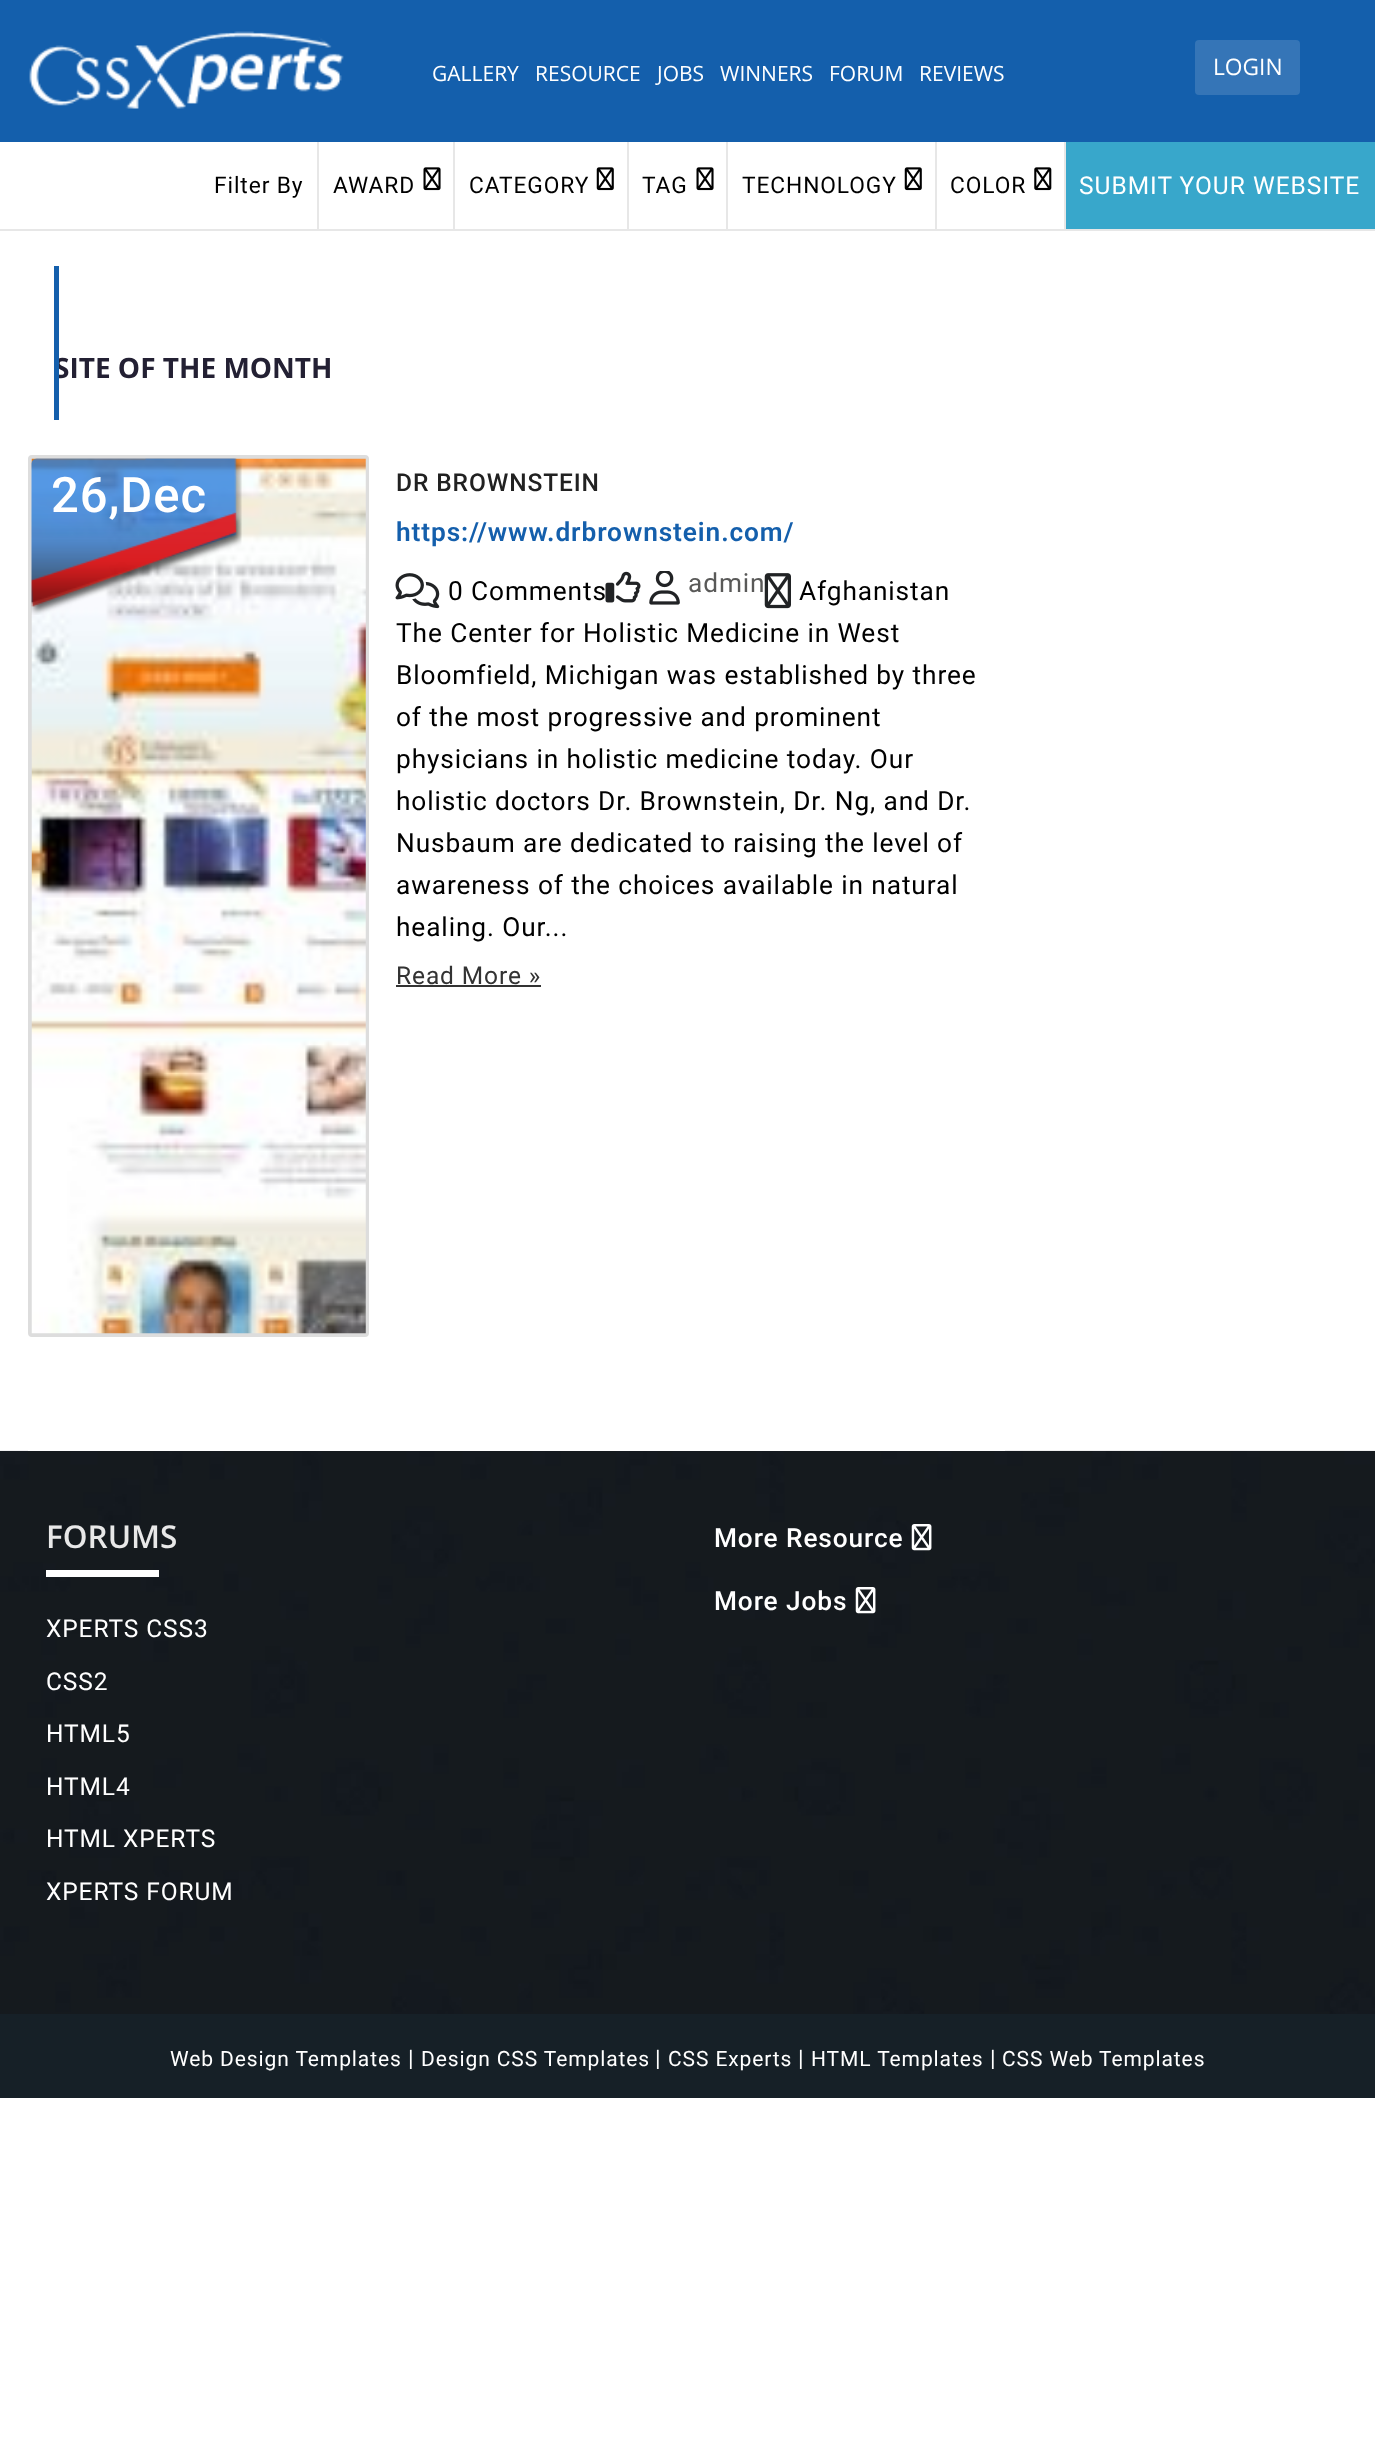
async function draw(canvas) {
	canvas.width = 1375;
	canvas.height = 2443;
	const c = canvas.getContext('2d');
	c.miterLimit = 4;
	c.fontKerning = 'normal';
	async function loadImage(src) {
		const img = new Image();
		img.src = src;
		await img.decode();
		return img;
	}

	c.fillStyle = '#fff';
	c.fillRect(0, 0, 1375, 2443);
	c.fillStyle = '#145fac';
	c.fillRect(0, 0, 1375, 142);
	c.drawImage(await loadImage('img1.png'), 29, 31, 315, 78);
	c.font = '21px Open Sans';
	c.fillStyle = '#fff';
	for (const [text, x, y] of [
		['GALLERY', 432, 81],
		['RESOURCE', 535, 81],
		['JOBS', 657, 81],
		['WINNERS', 720, 81],
		['FORUM', 829, 81],
		['REVIEWS', 919, 81],
	]) {
		c.fillText(text, x, y);
	}
	c.fillStyle = '#3575b7';
	c.beginPath();
	c.roundRect(1195, 40, 105, 55, 4);
	c.fill();
	c.font = '22.75px Open Sans';
	c.fillStyle = '#fff';
	c.fillText('LOGIN', 1213, 75);
	c.fillStyle = '#e7e7e7';
	c.fillRect(0, 229, 1375, 2);
	c.fillRect(317, 142, 2, 87);
	c.letterSpacing = '0.9px';
	c.font = '22.75px Roboto';
	c.fillStyle = '#000';
	c.fillText('Filter By', 214, 193);
	c.fillStyle = '#e7e7e7';
	c.fillRect(453, 142, 2, 87);
	c.fillStyle = '#000';
	c.fillText('AWARD', 333, 193);
	c.drawImage(await loadImage('img2.png'), 423, 167, 18, 24);
	c.fillStyle = '#e7e7e7';
	c.fillRect(627, 142, 2, 87);
	c.fillStyle = '#000';
	c.fillText('CATEGORY', 469, 193);
	c.drawImage(await loadImage('img3.png'), 596, 167, 18, 24);
	c.fillStyle = '#e7e7e7';
	c.fillRect(726, 142, 2, 87);
	c.fillStyle = '#000';
	c.fillText('TAG', 642, 193);
	c.drawImage(await loadImage('img2.png'), 696, 167, 18, 24);
	c.fillStyle = '#e7e7e7';
	c.fillRect(935, 142, 2, 87);
	c.fillStyle = '#000';
	c.fillText('TECHNOLOGY', 742, 193);
	c.drawImage(await loadImage('img3.png'), 904, 167, 18, 24);
	c.fillStyle = '#e7e7e7';
	c.fillRect(1064, 142, 2, 87);
	c.fillStyle = '#000';
	c.fillText('COLOR', 950, 193);
	c.drawImage(await loadImage('img4.png'), 1034, 167, 18, 24);
	c.fillStyle = '#38a7cb';
	c.fillRect(1066, 142, 309, 87);
	c.letterSpacing = '1px';
	c.font = '24.5px Roboto';
	c.fillStyle = '#fff';
	c.fillText('SUBMIT YOUR WEBSITE', 1079, 194);
	c.drawImage(await loadImage('img11.png'), 0, 1450, 1375, 564);
	c.fillRect(28, 1450, 977, 1);
	c.letterSpacing = '0px';
	c.font = 'bold 28px Open Sans';
	c.fillStyle = '#232033';
	c.fillText('SITE OF THE MONTH', 54, 378);
	c.fillStyle = '#145fac';
	c.fillRect(54, 266, 5, 154);
	c.beginPath();
	c.roundRect(30, 457, 337, 878, 2);
	c.strokeStyle = '#ddd';
	c.lineWidth = 4;
	c.stroke();
	c.drawImage(await loadImage('img5.png'), 31, 458, 335, 876);
	c.drawImage(await loadImage('img6.png'), 31, 458, 211, 157);
	c.letterSpacing = '0.9px';
	c.font = '500 49px Roboto';
	c.fillStyle = '#fff';
	c.fillText('26,Dec', 51, 512);
	c.font = '500 24.5px Roboto';
	c.fillStyle = '#212121';
	c.fillText('DR BROWNSTEIN', 396, 491);
	c.font = '600 26.25px Roboto';
	c.fillStyle = '#145fac';
	c.fillText('https://www.drbrownstein.com/', 396, 541);
	c.drawImage(await loadImage('img7.png'), 395, 573, 45, 36);
	c.font = '26.25px Roboto';
	c.fillStyle = '#000';
	c.fillText('0 Comments', 448, 600);
	c.drawImage(await loadImage('img8.png'), 605, 571, 36, 32);
	c.drawImage(await loadImage('img9.png'), 649, 571, 31, 34);
	c.fillStyle = '#595958';
	c.fillText('admin', 688, 592);
	c.drawImage(await loadImage('img10.png'), 764, 573, 27, 36);
	c.fillStyle = '#000';
	for (const [text, x, y] of [
		['Afghanistan', 799, 600],
		['The Center for Holistic Medicine in West', 396, 642],
		['Bloomfield, Michigan was established by three', 396, 684],
		['of the most progressive and prominent', 396, 726],
		['physicians in holistic medicine today. Our', 396, 768],
		['holistic doctors Dr. Brownstein, Dr. Ng, and Dr.', 396, 810],
		['Nusbaum are dedicated to raising the level of', 396, 852],
		['awareness of the choices available in natural', 396, 894],
		['healing. Our...', 396, 936],
	]) {
		c.fillText(text, x, y);
	}
	c.font = '24.5px Roboto';
	c.fillStyle = '#333';
	c.fillText('Read More »', 396, 984);
	c.fillRect(396, 985, 145, 2);
	c.letterSpacing = '0px';
	c.font = '600 31.5px Open Sans';
	c.fillStyle = '#e8e8e8';
	c.fillText('FORUMS', 46, 1548);
	c.fillStyle = '#fff';
	c.fillRect(46, 1570, 113, 7);
	c.letterSpacing = '0.9px';
	c.font = '24.5px Roboto';
	for (const [text, x, y] of [
		['XPERTS CSS3', 46, 1637],
		['CSS2', 46, 1690],
		['HTML5', 46, 1742],
		['HTML4', 46, 1795],
		['HTML XPERTS', 46, 1847],
		['XPERTS FORUM', 46, 1900],
	]) {
		c.fillText(text, x, y);
	}
	c.font = '500 26.25px Roboto';
	c.fillText('More Resource', 714, 1547);
	c.drawImage(await loadImage('img12.png'), 911, 1524, 21, 27);
	c.fillText('More Jobs', 714, 1610);
	c.drawImage(await loadImage('img13.png'), 855, 1587, 21, 27);
	c.fillStyle = '#162027';
	c.fillRect(0, 2014, 1375, 84);
	c.font = '21px Roboto';
	c.fillStyle = '#fff';
	c.fillText('Web Design Templates', 170, 2066);
	c.font = '22.75px Roboto';
	c.fillText('|', 408, 2066);
	c.font = '21px Roboto';
	c.fillText('Design CSS Templates', 421, 2066);
	c.font = '22.75px Roboto';
	c.fillText('|', 655, 2066);
	c.font = '21px Roboto';
	c.fillText('CSS Experts', 668, 2066);
	c.font = '22.75px Roboto';
	c.fillText('|', 798, 2066);
	c.font = '21px Roboto';
	c.fillText('HTML Templates', 811, 2066);
	c.font = '22.75px Roboto';
	c.fillText('|', 990, 2066);
	c.font = '21px Roboto';
	c.fillText('CSS Web Templates', 1002, 2066);
}

draw(document.querySelector('canvas'));
